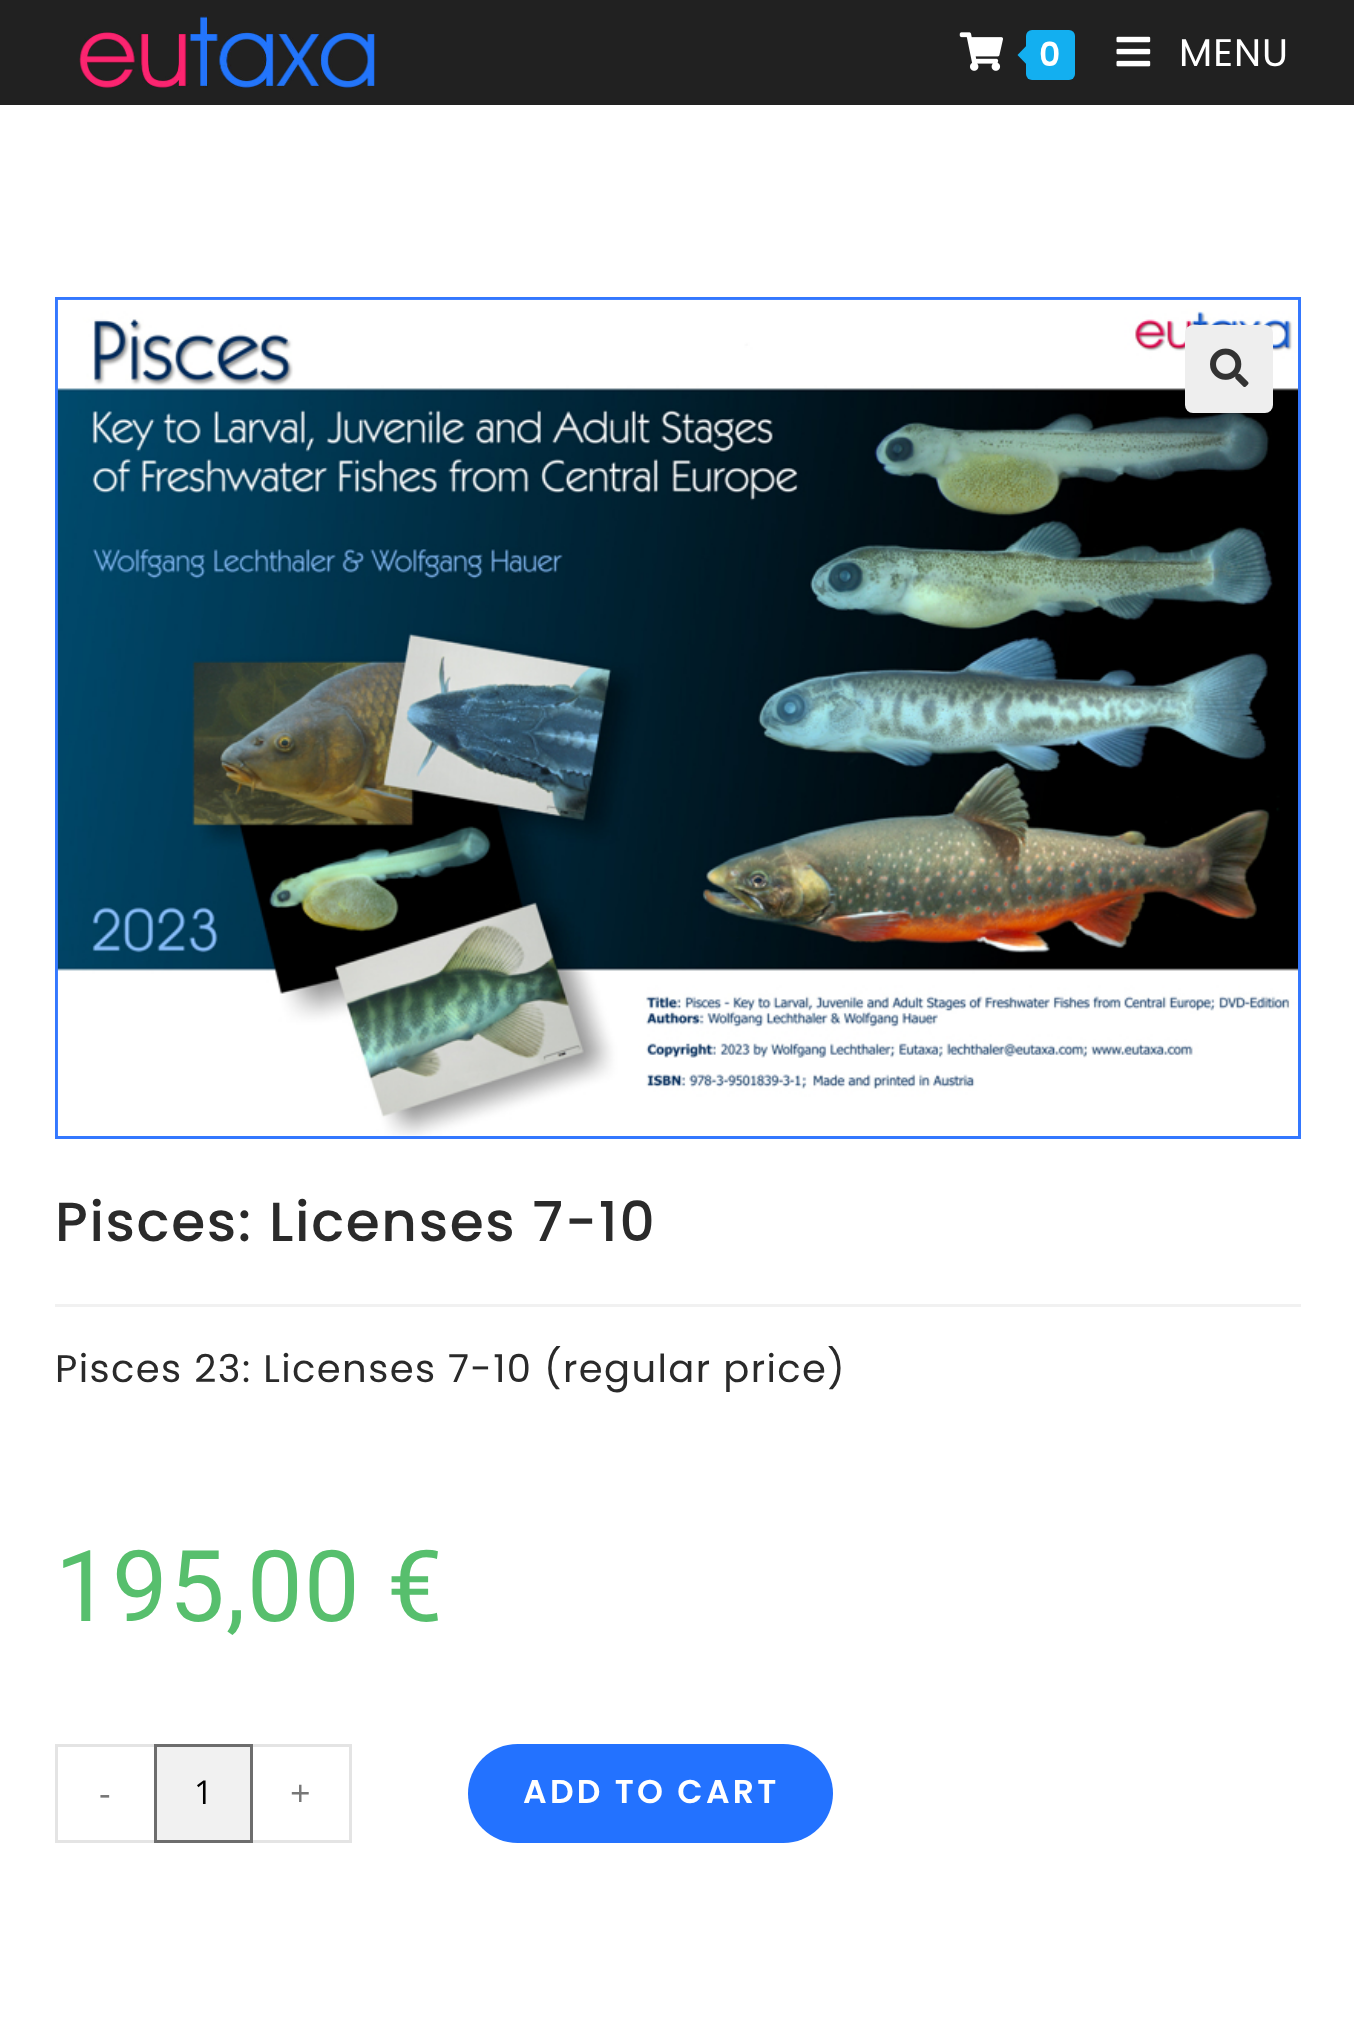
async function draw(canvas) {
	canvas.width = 1354;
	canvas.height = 2027;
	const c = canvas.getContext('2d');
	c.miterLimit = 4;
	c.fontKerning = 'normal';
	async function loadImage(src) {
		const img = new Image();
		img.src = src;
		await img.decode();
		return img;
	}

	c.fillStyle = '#fff';
	c.fillRect(0, 0, 1354, 2027);
	c.fillStyle = '#212121';
	c.fillRect(0, 0, 1354, 105);
	c.drawImage(await loadImage('img1.png'), 79, 15, 296, 73);
	c.drawImage(await loadImage('img2.png'), 959, 32, 44, 39);
	c.fillStyle = '#13aff0';
	c.beginPath();
	c.roundRect(1026, 30, 49, 50, 6);
	c.fill();
	c.beginPath();
	c.moveTo(1031, 41);
	c.lineTo(1031, 69);
	c.lineTo(1017.5, 55);
	c.closePath();
	c.fill();
	c.letterSpacing = '1px';
	c.font = '600 33px Poppins';
	c.fillStyle = '#fff';
	c.fillText('0', 1039, 66);
	c.drawImage(await loadImage('img3.png'), 1116, 36, 35, 31);
	c.font = '38.5px Poppins';
	c.fillText('MENU', 1179, 66);
	c.strokeStyle = '#3478ff';
	c.lineWidth = 3;
	c.strokeRect(56.5, 298.5, 1243, 839);
	c.drawImage(await loadImage('img4.png'), 57, 299, 1241, 837);
	c.fillStyle = '#eee';
	c.beginPath();
	c.roundRect(1185, 325, 88, 88, 8);
	c.fill();
	c.drawImage(await loadImage('img5.png'), 1210, 348, 39, 39);
	c.fillStyle = '#f1f1f1';
	c.fillRect(55, 1304, 1246, 3);
	c.letterSpacing = '1.65px';
	c.font = '500 55px Poppins';
	c.fillStyle = '#2a2a2a';
	c.fillText('Pisces: Licenses 7-10', 55, 1241);
	c.letterSpacing = '1.4px';
	c.font = '38.5px Poppins';
	c.fillText('Pisces 23: Licenses 7-10 (regular price)', 55, 1382);
	c.font = '99px Roboto';
	c.fillStyle = '#57bf6d';
	c.fillText('195,00 €', 55, 1621);
	for (const [x, y, w, h, color] of [
		[55, 1744, 99, 3, '#e4e4e4'],
		[55, 1840, 99, 3, '#e4e4e4'],
		[55, 1744, 3, 99, '#e4e4e4'],
	]) {
		c.fillStyle = color;
		c.fillRect(x, y, w, h);
	}
	c.font = '36px Open Sans';
	c.fillStyle = '#777';
	c.fillText('-', 99, 1806);
	c.fillStyle = '#f1f1f1';
	c.beginPath();
	c.rect(155.5, 1745.5, 96, 96);
	c.fill();
	c.strokeStyle = '#6d6d6d';
	c.stroke();
	c.letterSpacing = '0px';
	c.font = '33px Open Sans';
	c.fillStyle = '#000';
	c.fillText('1', 194, 1804);
	for (const [x, y, w, h, color] of [
		[253, 1744, 99, 3, '#e4e4e4'],
		[349, 1744, 3, 99, '#e4e4e4'],
		[253, 1840, 99, 3, '#e4e4e4'],
	]) {
		c.fillStyle = color;
		c.fillRect(x, y, w, h);
	}
	c.letterSpacing = '1.4px';
	c.font = '36px Open Sans';
	c.fillStyle = '#777';
	c.fillText('+', 290, 1806);
	c.fillStyle = '#2372ff';
	c.beginPath();
	c.roundRect(468, 1744, 365, 99, 49.5);
	c.fill();
	c.letterSpacing = '3.25px';
	c.font = '600 33px Poppins';
	c.fillStyle = '#fff';
	c.fillText('ADD TO CART', 523, 1803);
}

draw(document.querySelector('canvas'));
